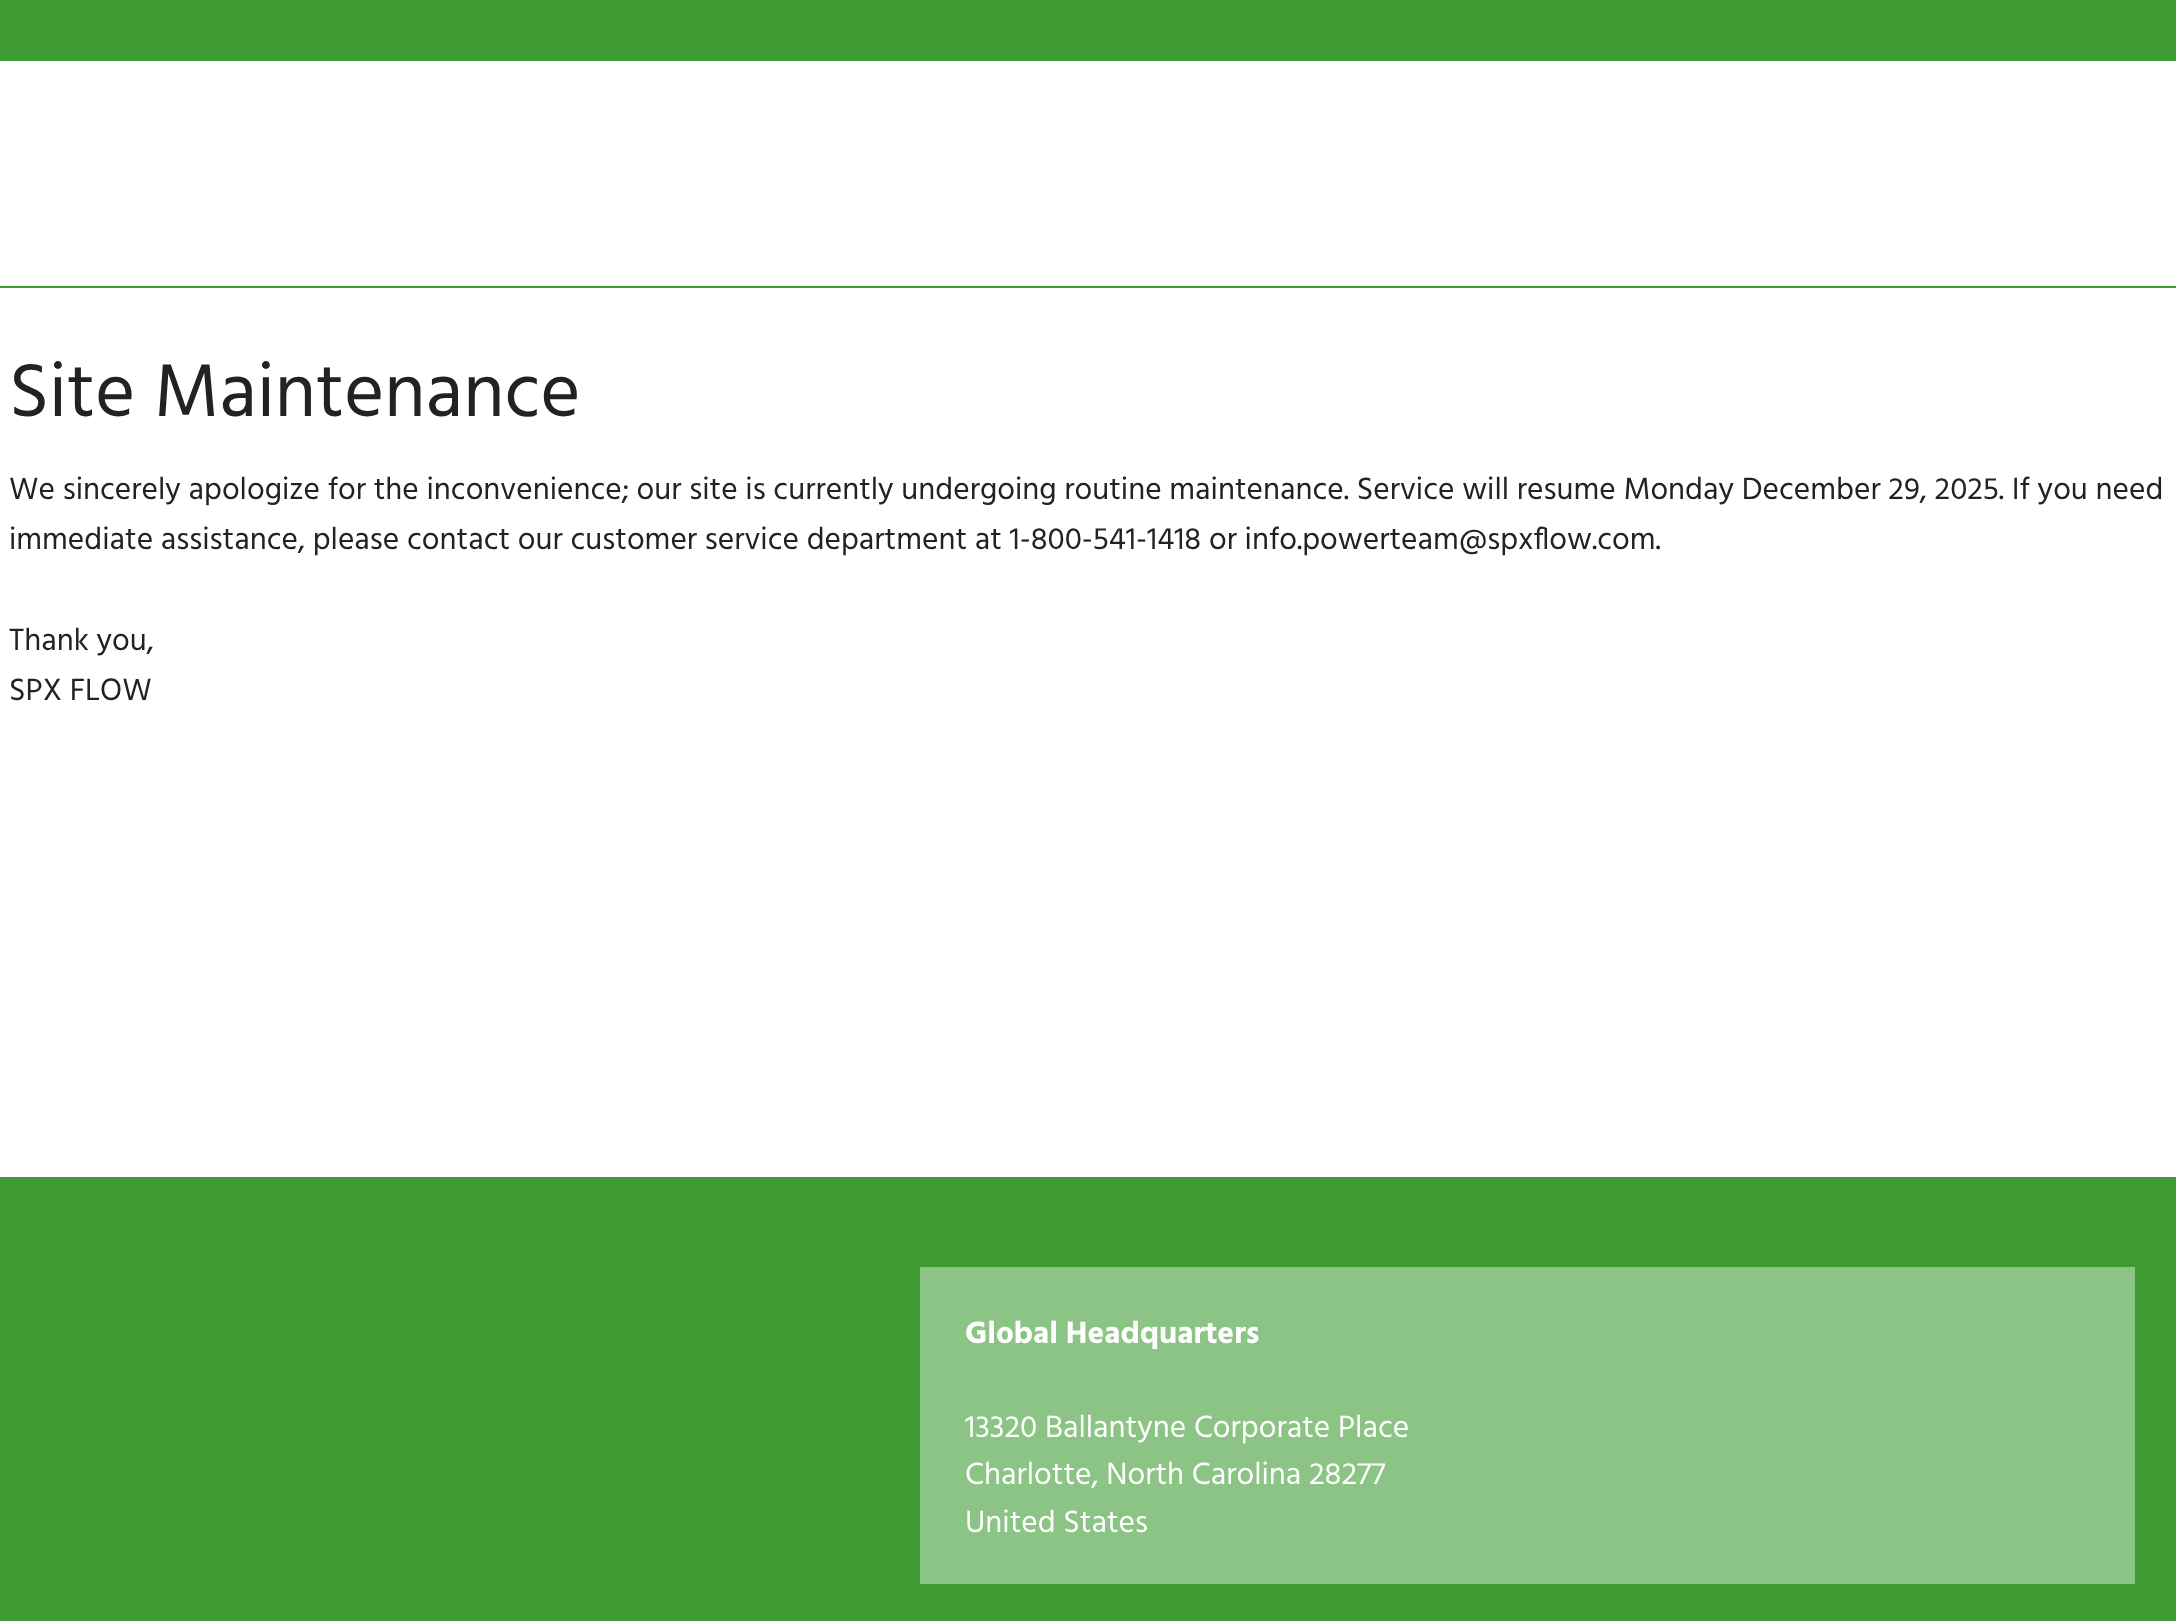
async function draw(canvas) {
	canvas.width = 2176;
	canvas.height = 1621;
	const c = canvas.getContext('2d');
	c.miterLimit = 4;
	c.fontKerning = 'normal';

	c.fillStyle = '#fff';
	c.fillRect(0, 0, 2176, 1621);
	c.fillStyle = '#3f9c35';
	c.fillRect(0, 286, 2176, 2);
	c.fillRect(0, 0, 2176, 61);
	c.font = '76.5px Hind';
	c.fillStyle = '#222';
	c.fillText('Site Maintenance', 9, 416);
	c.font = '31.5px Hind';
	for (const [text, x, y] of [
		['We sincerely apologize for the inconvenience; our site is currently undergoing routine maintenance. Service will resume Monday December 29, 2025. If you need', 9, 499],
		['immediate assistance, please contact our customer service department at 1-800-541-1418 or info.powerteam@spxflow.com.', 9, 549],
		['Thank you,', 9, 650],
		['SPX FLOW', 9, 700],
	]) {
		c.fillText(text, x, y);
	}
	c.fillStyle = '#3f9c35';
	c.fillRect(0, 1177, 2176, 444);
	c.fillStyle = '#8cc486';
	c.fillRect(920, 1267, 1215, 317);
	c.font = 'bold 31.5px Hind';
	c.fillStyle = '#fff';
	c.fillText('Global Headquarters', 965, 1343);
	c.font = '31.5px Hind';
	for (const [text, x, y] of [
		['13320 Ballantyne Corporate Place', 965, 1437],
		['Charlotte, North Carolina 28277', 965, 1484],
		['United States', 965, 1532],
	]) {
		c.fillText(text, x, y);
	}
}

draw(document.querySelector('canvas'));
